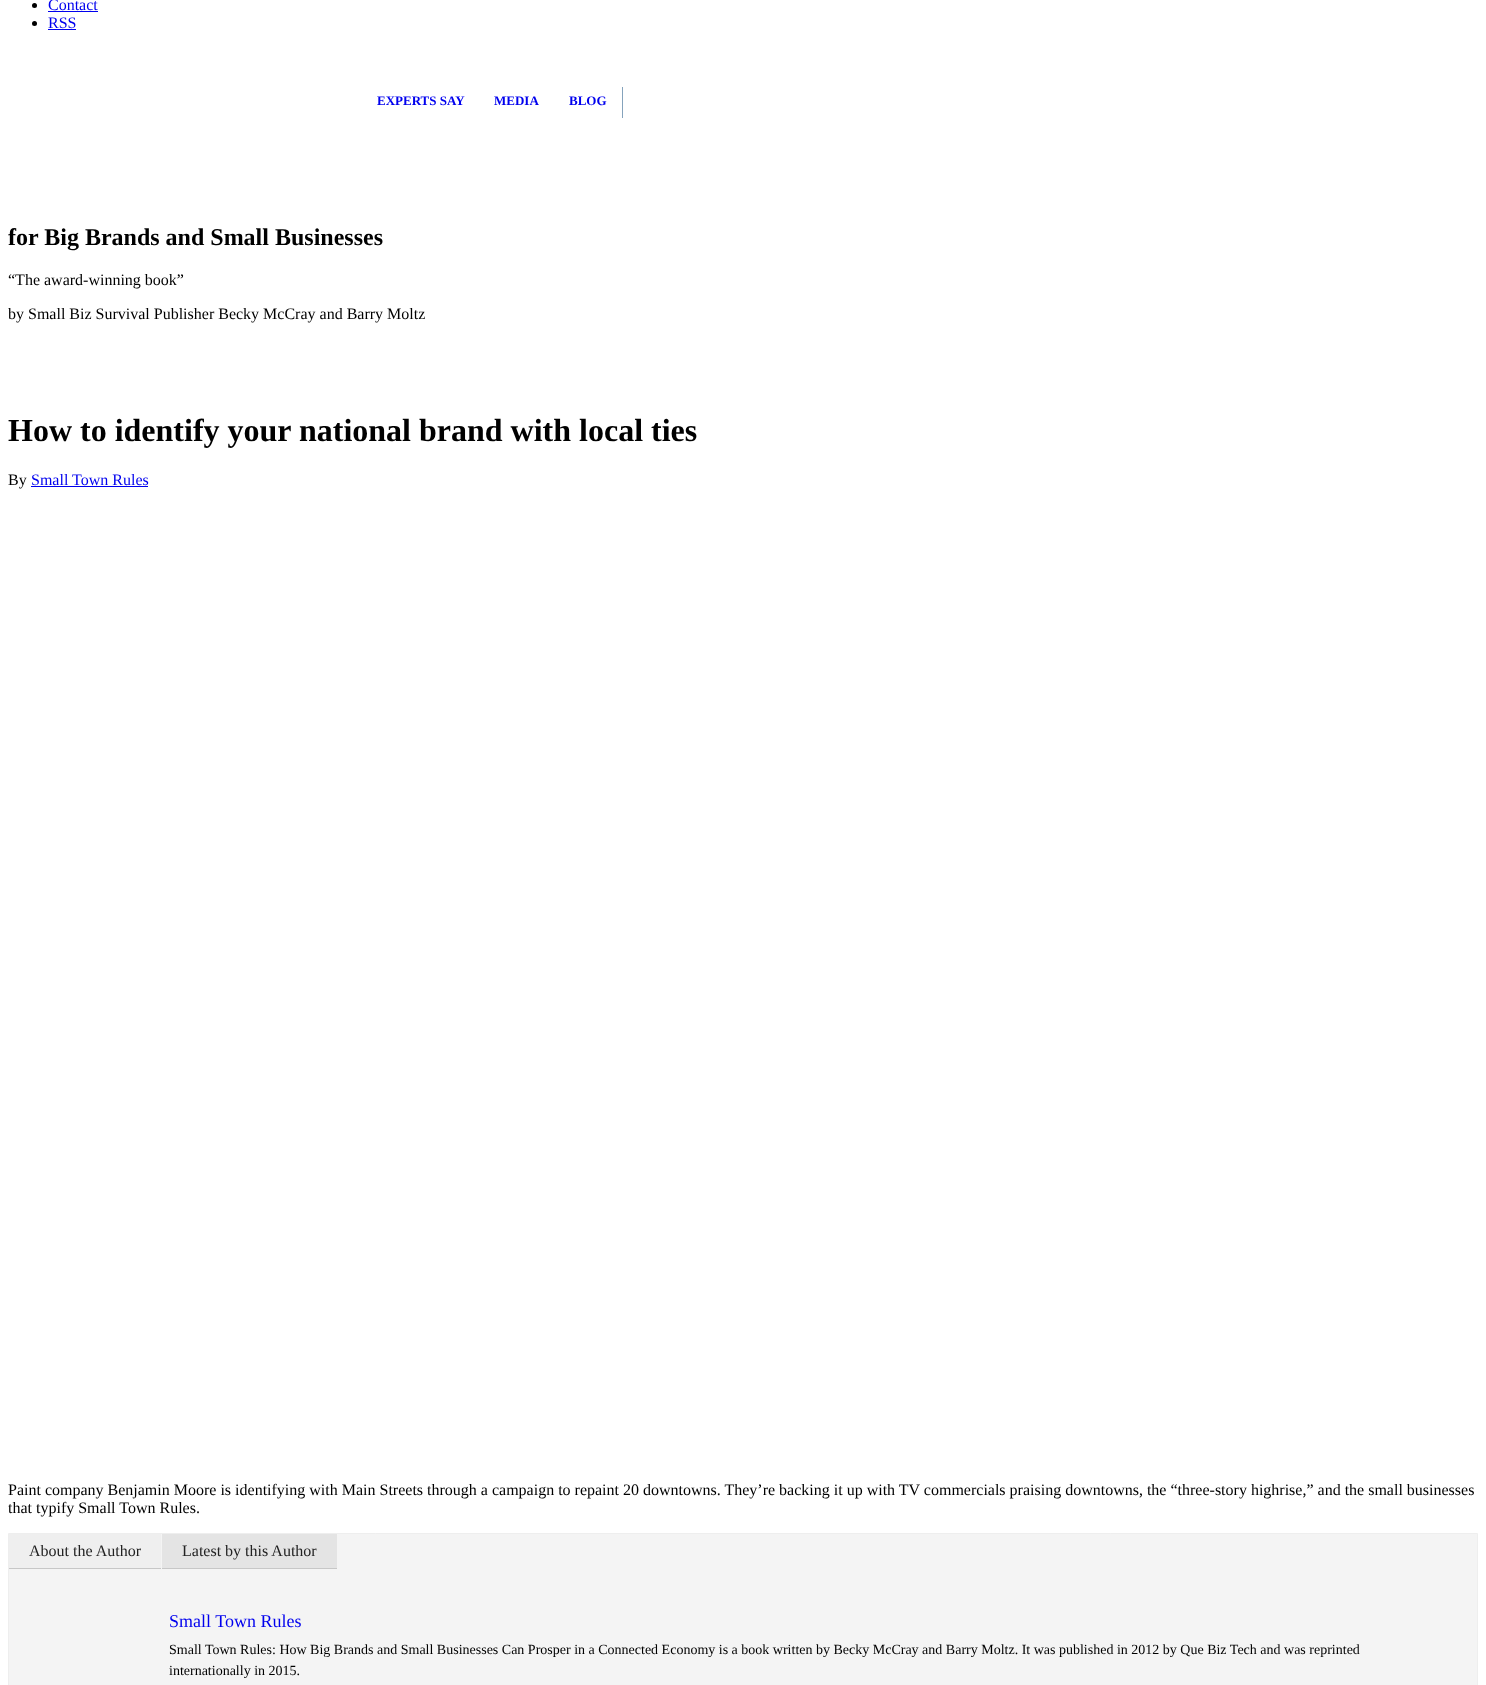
async function draw(canvas) {
	canvas.width = 1486;
	canvas.height = 1685;
	const c = canvas.getContext('2d');
	c.miterLimit = 4;
	c.fontKerning = 'normal';

	c.fillStyle = '#fff';
	c.fillRect(0, 0, 1486, 1685);
	c.fillStyle = '#000';
	c.beginPath();
	c.arc(34.5, 5.5, 2.5, 0, 2 * Math.PI);
	c.fill();
	c.font = '16px Liberation Serif';
	c.fillStyle = '#00e';
	c.fillText('Contact', 48, 10);
	c.fillRect(48, 11, 50, 1);
	c.fillStyle = '#000';
	c.beginPath();
	c.arc(34.5, 23.5, 2.5, 0, 2 * Math.PI);
	c.fill();
	c.fillStyle = '#00e';
	c.fillText('RSS', 48, 28);
	c.fillRect(48, 29, 28, 1);
	c.font = 'bold 13px Liberation Serif';
	for (const [text, x, y] of [
		['EXPERTS SAY', 377, 105],
		['MEDIA', 494, 105],
		['BLOG', 569, 105],
	]) {
		c.fillText(text, x, y);
	}
	c.fillStyle = '#85a3bc';
	c.fillRect(622, 87, 1, 31);
	c.font = 'bold 24px Liberation Serif';
	c.fillStyle = '#000';
	c.fillText('for Big Brands and Small Businesses', 8, 245);
	c.font = '16px Liberation Serif';
	c.fillText('“The award-winning book”', 8, 285);
	c.fillText('by Small Biz Survival Publisher Becky McCray and Barry Moltz', 8, 319);
	c.font = 'bold 32px Liberation Serif';
	c.fillText('How to identify your national brand with local ties', 8, 441);
	c.font = '16px Liberation Serif';
	c.fillText('By', 8, 485);
	c.fillStyle = '#00e';
	c.fillText('Small Town Rules', 31, 485);
	c.fillRect(31, 486, 117, 1);
	c.fillStyle = '#000';
	c.fillText('Paint company Benjamin Moore is identifying with Main Streets through a campaign to repaint 20 downtowns. They’re backing it up with TV commercials praising downtowns, the “three-story highrise,” and the small businesses', 8, 1495);
	c.fillText('that typify Small Town Rules.', 8, 1513);
	c.fillStyle = '#f4f4f4';
	c.beginPath();
	c.rect(8.5, 1533.5, 1469, 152);
	c.fill();
	c.strokeStyle = '#eee';
	c.stroke();
	c.fillStyle = '#efefef';
	c.fillRect(9, 1534, 152, 34);
	c.fillStyle = '#c7c7c7';
	c.fillRect(9, 1568, 152, 1);
	c.fillStyle = '#222';
	c.fillText('About the Author', 29, 1556);
	c.fillStyle = '#e4e4e4';
	c.fillRect(162, 1534, 175, 34);
	c.fillStyle = '#c7c7c7';
	c.fillRect(162, 1568, 175, 1);
	c.fillStyle = '#222';
	c.fillText('Latest by this Author', 182, 1556);
	c.font = '18px Liberation Serif';
	c.fillStyle = '#00e';
	c.fillText('Small Town Rules', 169, 1627);
	c.font = '14px Liberation Serif';
	c.fillStyle = '#000';
	c.fillText('Small Town Rules: How Big Brands and Small Businesses Can Prosper in a Connected Economy is a book written by Becky McCray and Barry Moltz. It was published in 2012 by Que Biz Tech and was reprinted', 169, 1654);
	c.fillText('internationally in 2015.', 169, 1675);
}

draw(document.querySelector('canvas'));
